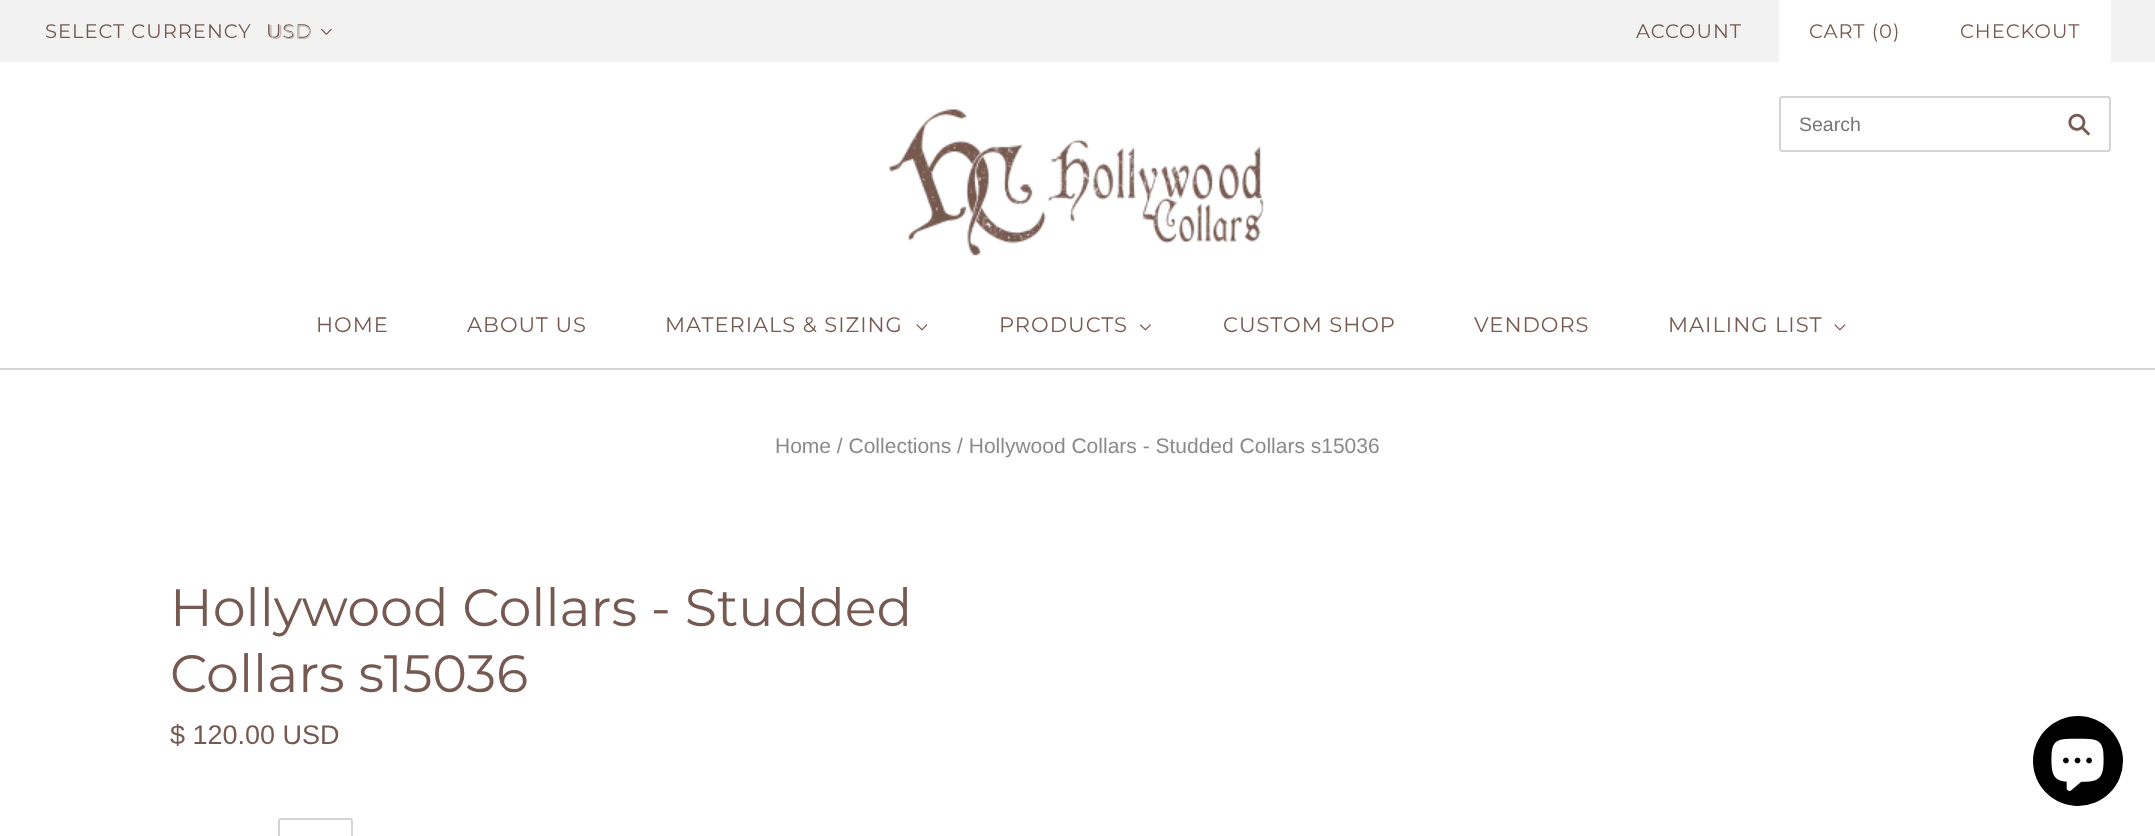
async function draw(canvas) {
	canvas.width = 2155;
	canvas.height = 836;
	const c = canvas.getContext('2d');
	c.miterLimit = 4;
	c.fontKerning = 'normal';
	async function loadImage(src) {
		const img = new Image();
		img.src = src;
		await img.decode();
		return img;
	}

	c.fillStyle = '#fff';
	c.fillRect(0, 0, 2155, 836);
	c.fillStyle = '#f2f2f2';
	c.fillRect(0, 0, 2155, 62);
	c.letterSpacing = '1px';
	c.font = '19.5px Montserrat';
	c.fillStyle = '#765950';
	c.fillText('SELECT CURRENCY', 45, 38);
	c.fillText('USD', 266, 38);
	c.drawImage(await loadImage('img1.png'), 321, 28, 11, 7);
	c.letterSpacing = '0px';
	c.fillStyle = '#c3b8b5';
	c.fillText('USD', 268, 39);
	c.letterSpacing = '1px';
	c.fillStyle = '#765950';
	c.fillText('ACCOUNT', 1636, 38);
	c.fillStyle = '#fff';
	c.fillRect(1779, 0, 332, 62);
	c.fillStyle = '#765950';
	c.fillText('CART (0)', 1809, 38);
	c.fillText('CHECKOUT', 1960, 38);
	c.beginPath();
	c.roundRect(1780, 97, 330, 54, 2);
	c.strokeStyle = '#d4d4d4';
	c.lineWidth = 2;
	c.stroke();
	c.letterSpacing = '0px';
	c.font = '19.5px Liberation Sans';
	c.fillStyle = '#757575';
	c.fillText('Search', 1799, 131);
	c.drawImage(await loadImage('img2.png'), 2068, 113, 23, 23);
	c.drawImage(await loadImage('img3.png'), 889, 109, 375, 147);
	c.fillStyle = '#d4d4d4';
	c.fillRect(0, 368, 2155, 2);
	c.letterSpacing = '1px';
	c.font = '21px Montserrat';
	c.fillStyle = '#765950';
	for (const [text, x, y] of [
		['HOME', 316, 332],
		['ABOUT US', 467, 332],
		['MATERIALS & SIZING', 665, 332],
	]) {
		c.fillText(text, x, y);
	}
	c.drawImage(await loadImage('img4.png'), 916, 324, 12, 7);
	c.fillText('PRODUCTS', 999, 332);
	c.drawImage(await loadImage('img5.png'), 1140, 324, 11, 7);
	for (const [text, x, y] of [
		['CUSTOM SHOP', 1223, 332],
		['VENDORS', 1474, 332],
		['MAILING LIST', 1668, 332],
	]) {
		c.fillText(text, x, y);
	}
	c.drawImage(await loadImage('img4.png'), 1834, 324, 12, 7);
	c.letterSpacing = '0px';
	c.font = '21px Liberation Sans';
	c.fillStyle = '#8a8a8a';
	c.fillText('Home / Collections / Hollywood Collars - Studded Collars s15036', 775, 453);
	c.font = '52.5px Montserrat';
	c.fillStyle = '#765950';
	c.fillText('Hollywood Collars - Studded', 170, 626);
	c.fillText('Collars s15036', 170, 692);
	c.font = '27px Liberation Sans';
	c.fillText('$ 120.00 USD', 170, 744);
	c.beginPath();
	c.roundRect(279, 819, 73, 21, 2);
	c.stroke();
	c.fillStyle = '#000';
	c.beginPath();
	c.arc(2078, 761, 45, 0, 2 * Math.PI);
	c.fill();
	c.drawImage(await loadImage('img6.png'), 2051, 738, 53, 53);
}

draw(document.querySelector('canvas'));
